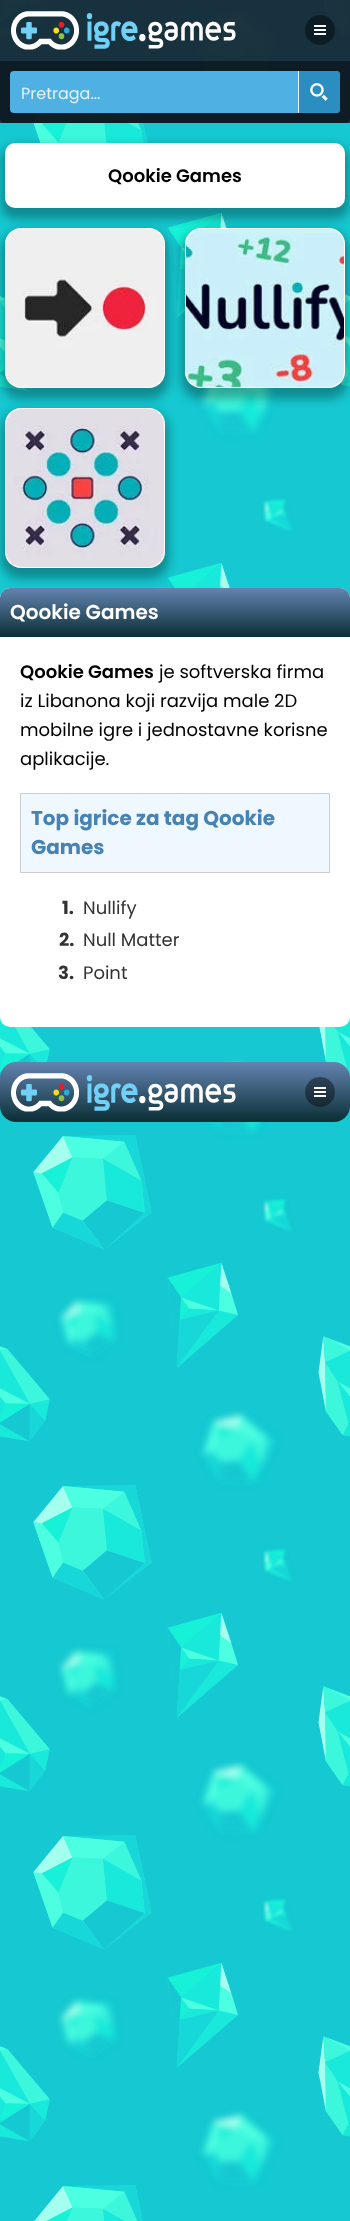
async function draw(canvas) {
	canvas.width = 350;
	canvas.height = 2221;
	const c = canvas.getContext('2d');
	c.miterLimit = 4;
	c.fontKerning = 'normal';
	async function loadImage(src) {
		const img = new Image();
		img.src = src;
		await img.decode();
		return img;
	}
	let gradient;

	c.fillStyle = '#15c8d1';
	c.fillRect(0, 0, 350, 2221);
	c.drawImage(await loadImage('img1.png'), 0, 0, 350, 2221);
	c.fillStyle = '#182936f2';
	c.fillRect(0, 0, 350, 123);
	c.drawImage(await loadImage('img2.png'), 11, 11, 225, 39);
	c.fillStyle = '#0e1d25';
	c.beginPath();
	c.arc(320, 30, 15, 0, 2 * Math.PI);
	c.fill();
	c.drawImage(await loadImage('img3.png'), 314, 25, 12, 10);
	c.fillStyle = '#00000066';
	c.beginPath();
	c.roundRect(0, 61, 350, 62, [0, 0, 5, 5]);
	c.fill();
	c.fillStyle = '#4fb1e3';
	c.beginPath();
	c.roundRect(10, 71, 330, 42, 4);
	c.fill();
	c.font = '16px Poppins';
	c.fillStyle = '#e5f3fb';
	c.fillText('Pretraga...', 21, 99);
	c.fillStyle = '#2b8ec1';
	c.beginPath();
	c.roundRect(298, 71, 42, 42, [0, 4, 4, 0]);
	c.fill();
	c.fillStyle = '#f1f1f1';
	c.fillRect(298, 71, 1, 42);
	c.drawImage(await loadImage('img4.png'), 310, 83, 18, 18);
	c.fillStyle = '#0000004d';
	c.filter = 'blur(5px)';
	c.beginPath();
	c.roundRect(1, 146, 348, 73, 14);
	c.fill();
	c.filter = 'none';
	c.fillStyle = '#fff';
	c.beginPath();
	c.roundRect(5, 143, 340, 65, 10);
	c.fill();
	c.font = '600 18px Poppins';
	c.fillStyle = '#000';
	c.fillText('Qookie Games', 108, 182);
	c.fillStyle = '#0000004d';
	c.filter = 'blur(5px)';
	c.beginPath();
	c.roundRect(1, 231, 168, 168, 20);
	c.fill();
	c.filter = 'none';
	c.fillStyle = '#fff';
	c.beginPath();
	c.roundRect(5, 228, 160, 160, 16);
	c.fill();
	c.drawImage(await loadImage('img5.png'), 6, 229, 158, 158);
	c.fillStyle = '#0000004d';
	c.filter = 'blur(5px)';
	c.beginPath();
	c.roundRect(181, 231, 168, 168, 20);
	c.fill();
	c.filter = 'none';
	c.fillStyle = '#fff';
	c.beginPath();
	c.roundRect(185, 228, 160, 160, 16);
	c.fill();
	c.drawImage(await loadImage('img6.png'), 186, 229, 158, 158);
	c.beginPath();
	c.roundRect(0, 588, 350, 439, 10);
	c.fill();
	gradient = c.createLinearGradient(175, 588, 175, 637);
	gradient.addColorStop(0, '#6484b1');
	gradient.addColorStop(1, '#0a2f35');
	c.fillStyle = gradient;
	c.beginPath();
	c.roundRect(0, 588, 350, 49, [10, 10, 0, 0]);
	c.fill();
	c.fillStyle = '#0000004d';
	c.filter = 'blur(5px)';
	c.beginPath();
	c.roundRect(1, 411, 168, 168, 20);
	c.fill();
	c.filter = 'none';
	c.fillStyle = '#fff';
	c.beginPath();
	c.roundRect(5, 408, 160, 160, 16);
	c.fill();
	c.drawImage(await loadImage('img7.png'), 6, 409, 158, 158);
	c.font = '600 20px Poppins';
	c.fillText('Qookie Games', 10, 619);
	c.font = '600 18px Poppins';
	c.fillStyle = '#000';
	c.fillText('Qookie Games', 20, 678);
	c.font = '18px Poppins';
	for (const [text, x, y] of [
		['je softverska firma', 159, 678],
		['iz Libanona koji razvija male 2D', 20, 707],
		['mobilne igre i jednostavne korisne', 20, 736],
		['aplikacije.', 20, 765],
	]) {
		c.fillText(text, x, y);
	}
	c.fillStyle = '#f0f8ff';
	c.beginPath();
	c.rect(20.5, 793.5, 309, 79);
	c.fill();
	c.strokeStyle = '#ccc';
	c.stroke();
	c.font = 'bold 20px Poppins';
	c.fillStyle = '#4682b4';
	c.fillText('Top igrice za tag Qookie', 31, 825);
	c.fillText('Games', 31, 854);
	c.font = 'bold 18px Poppins';
	c.fillStyle = '#333';
	c.fillText('1.', 62, 914);
	c.font = '18px Poppins';
	c.fillText('Nullify', 83, 914);
	c.font = 'bold 18px Poppins';
	c.fillText('2.', 59, 946);
	c.font = '18px Poppins';
	c.fillText('Null Matter', 83, 946);
	c.font = 'bold 18px Poppins';
	c.fillText('3.', 58, 979);
	c.font = '18px Poppins';
	c.fillText('Point', 83, 979);
	gradient = c.createLinearGradient(175, 1062, 175, 1122);
	gradient.addColorStop(0, '#6484b1');
	gradient.addColorStop(1, '#0a2f35');
	c.fillStyle = gradient;
	c.beginPath();
	c.roundRect(0, 1062, 350, 60, 16);
	c.fill();
	c.drawImage(await loadImage('img8.png'), 11, 1073, 225, 39);
	c.fillStyle = '#00000066';
	c.beginPath();
	c.arc(320, 1092, 15, 0, 2 * Math.PI);
	c.fill();
	c.drawImage(await loadImage('img9.png'), 314, 1087, 12, 10);
}

draw(document.querySelector('canvas'));
